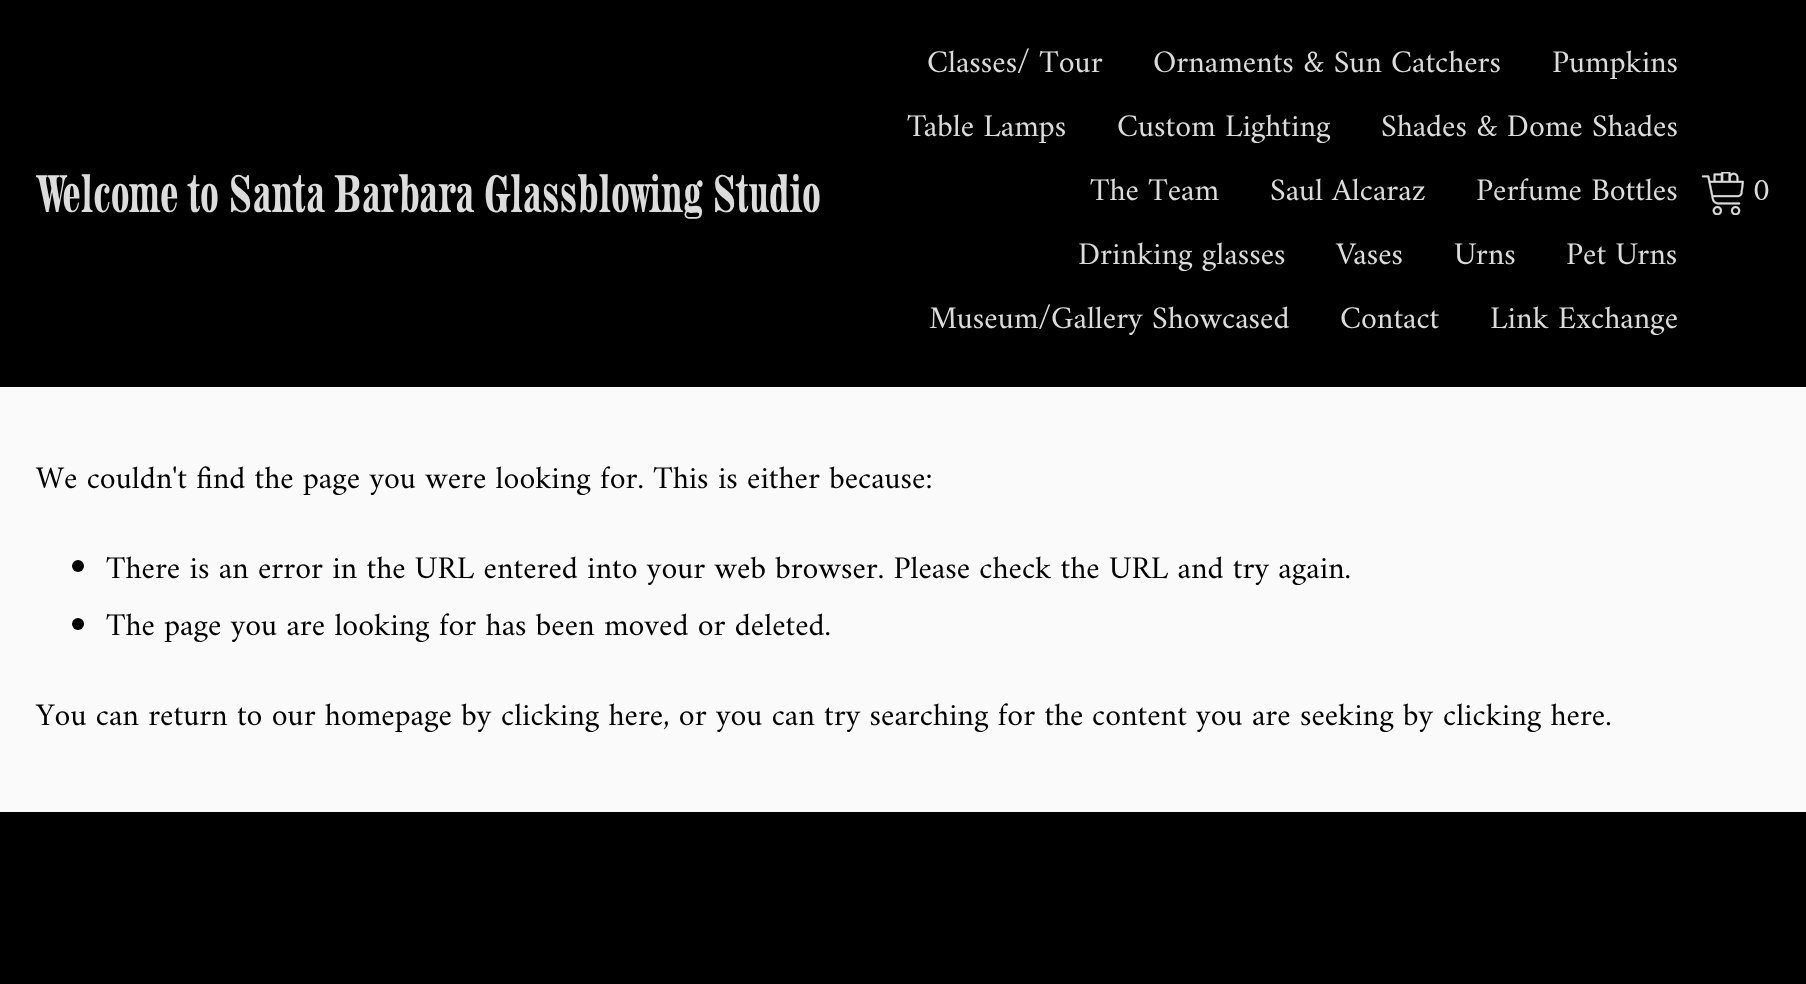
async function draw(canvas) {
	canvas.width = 1806;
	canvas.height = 984;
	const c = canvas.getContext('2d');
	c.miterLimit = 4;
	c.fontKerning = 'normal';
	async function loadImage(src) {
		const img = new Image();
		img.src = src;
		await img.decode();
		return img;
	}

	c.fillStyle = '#fafafa';
	c.fillRect(0, 0, 1806, 984);
	c.fillStyle = '#000';
	c.fillRect(0, 0, 1806, 387);
	c.font = '51.4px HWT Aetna';
	c.fillStyle = '#dcdcdc';
	c.fillText('Welcome to Santa Barbara Glassblowing Studio', 36, 212);
	c.font = '31.9px Amiri';
	for (const [text, x, y] of [
		['Classes/ Tour', 927, 72],
		['Ornaments & Sun Catchers', 1153, 72],
		['Pumpkins', 1552, 72],
		['Table Lamps', 907, 136],
		['Custom Lighting', 1117, 136],
		['Shades & Dome Shades', 1381, 136],
		['The Team', 1090, 200],
		['Saul Alcaraz', 1270, 200],
		['Perfume Bottles', 1476, 200],
		['Drinking glasses', 1078, 264],
		['Vases', 1336, 264],
		['Urns', 1454, 264],
		['Pet Urns', 1566, 264],
		['Museum/Gallery Showcased', 929, 328],
		['Contact', 1340, 328],
		['Link Exchange', 1490, 328],
	]) {
		c.fillText(text, x, y);
	}
	c.drawImage(await loadImage('img1.png'), 1701, 172, 43, 43);
	c.fillText('0', 1753, 200);
	c.fillStyle = '#000';
	c.fillText('We couldn\'t find the page you were looking for. This is either because:', 36, 488);
	c.beginPath();
	c.arc(78, 566, 6, 0, 2 * Math.PI);
	c.fill();
	c.fillText('There is an error in the URL entered into your web browser. Please check the URL and try again.', 106, 578);
	c.beginPath();
	c.arc(78, 624, 6, 0, 2 * Math.PI);
	c.fill();
	for (const [text, x, y] of [
		['The page you are looking for has been moved or deleted.', 106, 635],
		['You can return to our homepage by', 36, 725],
		['clicking here, or you can try searching for the', 501, 725],
		['content you are seeking by', 1092, 725],
		['clicking here.', 1443, 725],
	]) {
		c.fillText(text, x, y);
	}
	c.fillRect(0, 812, 1806, 172);
}

draw(document.querySelector('canvas'));
